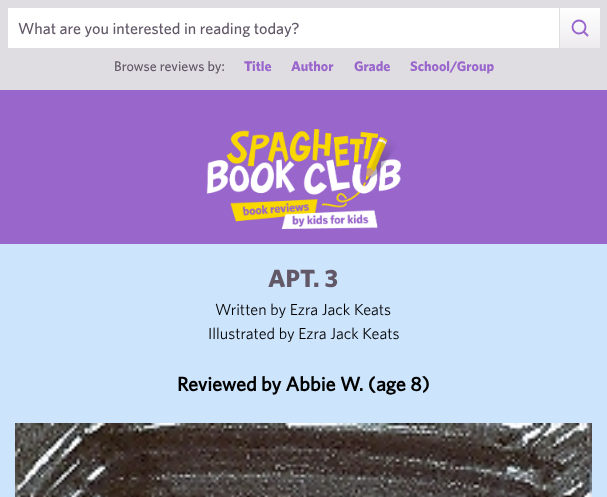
async function draw(canvas) {
	canvas.width = 607;
	canvas.height = 497;
	const c = canvas.getContext('2d');
	c.miterLimit = 4;
	c.fontKerning = 'normal';
	async function loadImage(src) {
		const img = new Image();
		img.src = src;
		await img.decode();
		return img;
	}
	let gradient;

	c.fillStyle = '#96c';
	c.fillRect(0, 0, 607, 497);
	c.fillStyle = '#e0dde2';
	c.fillRect(0, 0, 607, 90);
	c.fillStyle = '#fff';
	c.fillRect(8, 8, 551, 40);
	c.font = '500 16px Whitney';
	c.fillStyle = '#625868';
	c.fillText('What are you interested in reading today?', 18, 34);
	gradient = c.createLinearGradient(561, 48, 561, -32);
	gradient.addColorStop(0, '#edebee');
	gradient.addColorStop(0.5, '#fff');
	c.fillStyle = gradient;
	c.fillRect(560, 8, 40, 40);
	c.beginPath();
	c.arc(579, 27, 6.5, 0, 2 * Math.PI);
	c.strokeStyle = '#96c';
	c.lineWidth = 1.9;
	c.stroke();
	c.beginPath();
	c.moveTo(587.5, 35.5);
	c.lineTo(584, 32);
	c.lineCap = 'round';
	c.lineJoin = 'round';
	c.stroke();
	c.font = '500 14px Whitney';
	c.fillStyle = '#625868';
	c.fillText('Browse reviews by:', 114, 71);
	c.font = 'bold 14px Whitney';
	c.fillStyle = '#96c';
	for (const [text, x, y] of [
		['Title', 244, 71],
		['Author', 291, 71],
		['Grade', 354, 71],
		['School/Group', 410, 71],
	]) {
		c.fillText(text, x, y);
	}
	c.drawImage(await loadImage('img1.png'), 206, 129, 195, 100);
	c.fillStyle = '#cce4fc';
	c.fillRect(0, 244, 607, 253);
	c.font = 'bold 25px Whitney';
	c.fillStyle = '#625868';
	c.fillText('APT. 3', 268, 287);
	c.font = '16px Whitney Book';
	c.fillStyle = '#000';
	c.fillText('Written by Ezra Jack Keats', 215, 315);
	c.fillText('Illustrated by Ezra Jack Keats', 208, 339);
	c.font = 'bold 20px "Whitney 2"';
	c.fillText('Reviewed by Abbie W. (age 8)', 177, 391);
	c.drawImage(await loadImage('img2.png'), 15, 423, 577, 74);
}

draw(document.querySelector('canvas'));
